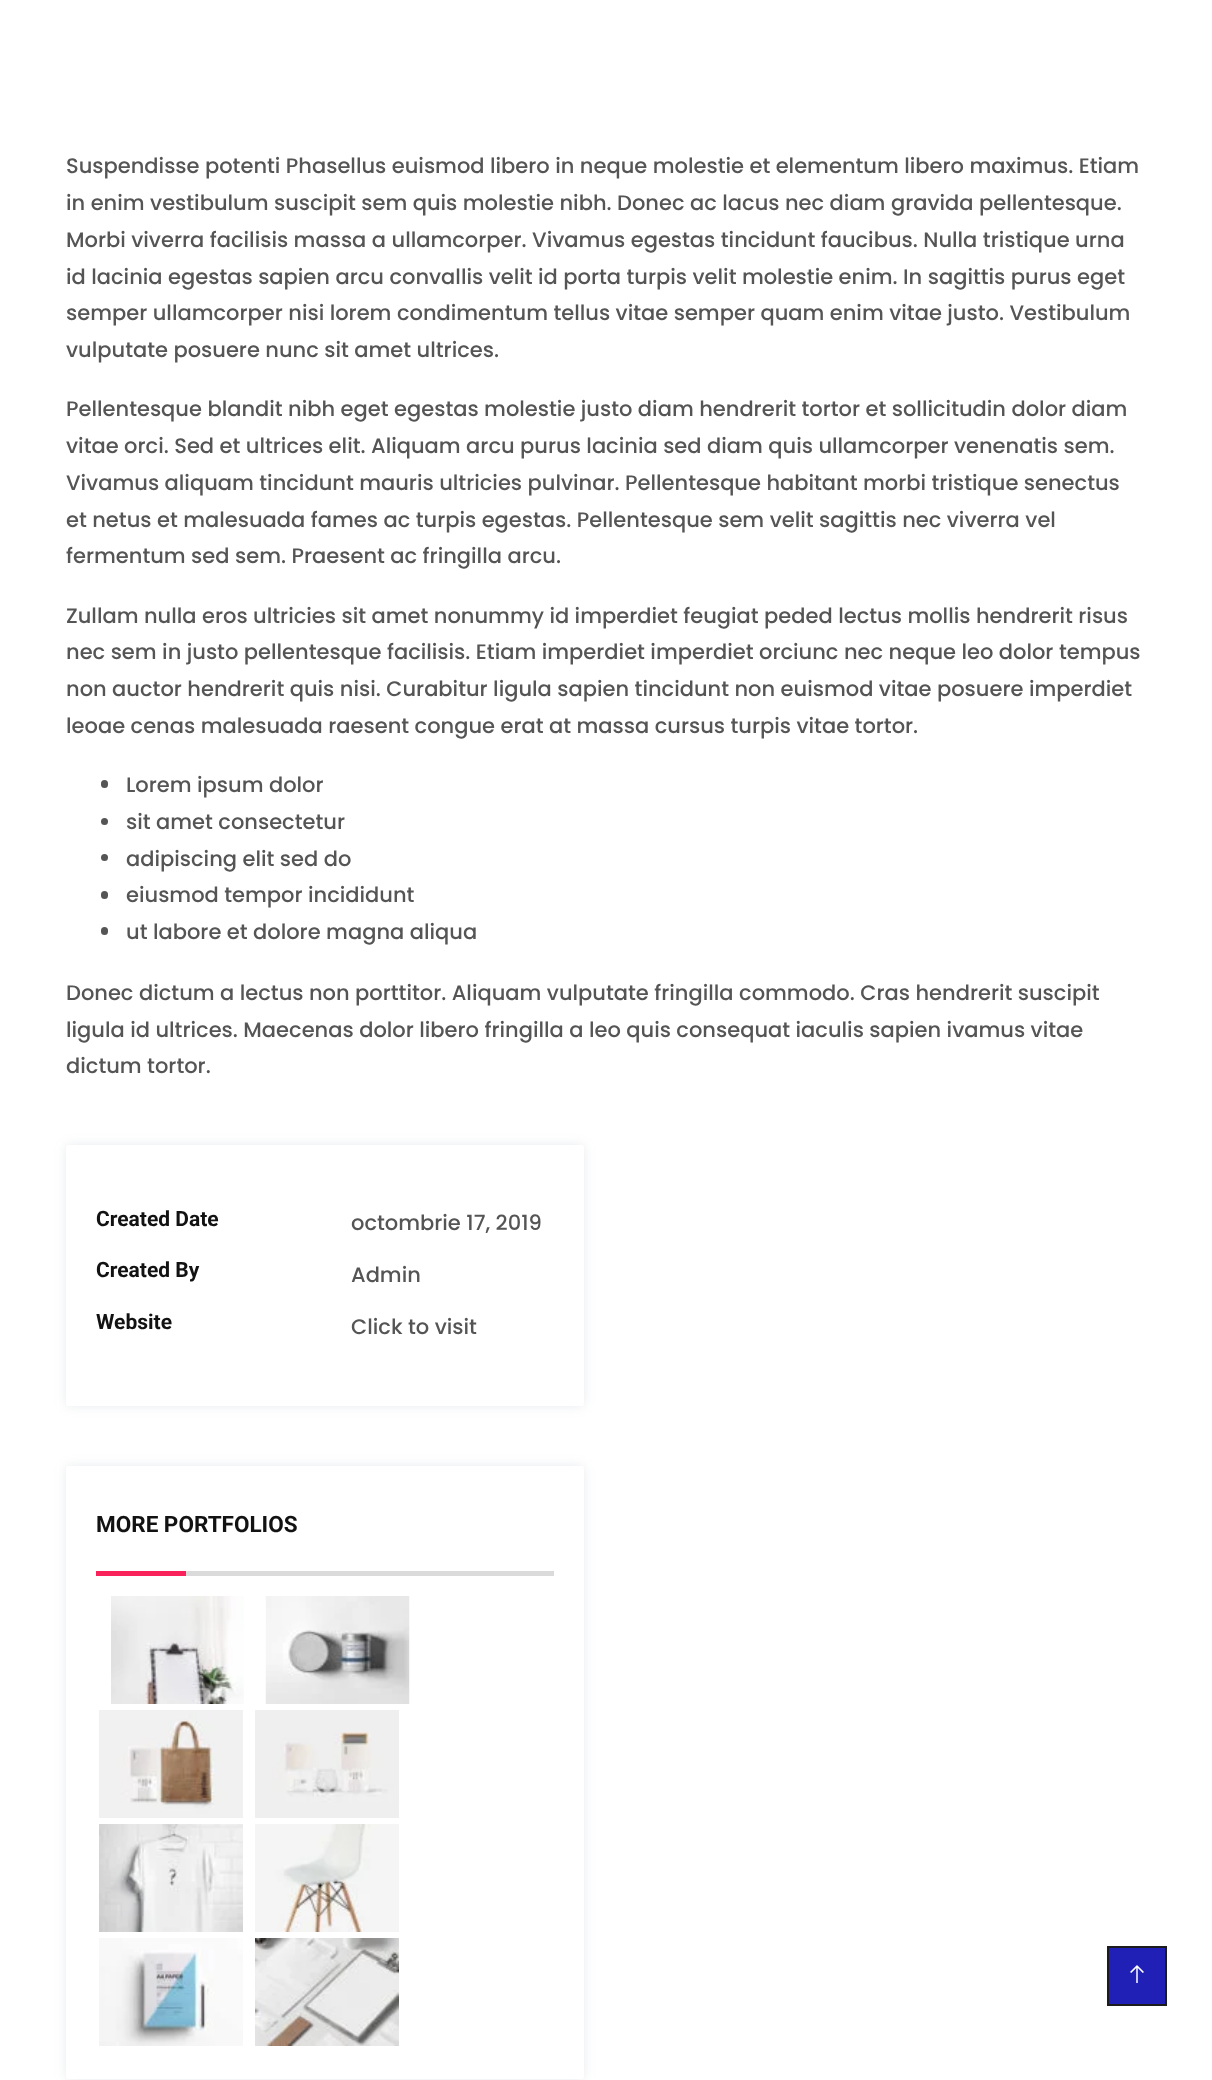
async function draw(canvas) {
	canvas.width = 1212;
	canvas.height = 2080;
	const c = canvas.getContext('2d');
	c.miterLimit = 4;
	c.fontKerning = 'normal';
	async function loadImage(src) {
		const img = new Image();
		img.src = src;
		await img.decode();
		return img;
	}

	c.fillStyle = '#fff';
	c.fillRect(0, 0, 1212, 2080);
	c.font = '500 21px Poppins';
	c.fillStyle = '#555';
	for (const [text, x, y] of [
		['Suspendisse potenti Phasellus euismod libero in neque molestie et elementum libero maximus. Etiam', 66, 173],
		['in enim vestibulum suscipit sem quis molestie nibh. Donec ac lacus nec diam gravida pellentesque.', 66, 210],
		['Morbi viverra facilisis massa a ullamcorper. Vivamus egestas tincidunt faucibus. Nulla tristique urna', 66, 247],
		['id lacinia egestas sapien arcu convallis velit id porta turpis velit molestie enim. In sagittis purus eget', 66, 284],
		['semper ullamcorper nisi lorem condimentum tellus vitae semper quam enim vitae justo. Vestibulum', 66, 320],
		['vulputate posuere nunc sit amet ultrices.', 66, 357],
		['Pellentesque blandit nibh eget egestas molestie justo diam hendrerit tortor et sollicitudin dolor diam', 66, 416],
		['vitae orci. Sed et ultrices elit. Aliquam arcu purus lacinia sed diam quis ullamcorper venenatis sem.', 66, 453],
		['Vivamus aliquam tincidunt mauris ultricies pulvinar. Pellentesque habitant morbi tristique senectus', 66, 490],
		['et netus et malesuada fames ac turpis egestas. Pellentesque sem velit sagittis nec viverra vel', 66, 527],
		['fermentum sed sem. Praesent ac fringilla arcu.', 66, 563],
		['Zullam nulla eros ultricies sit amet nonummy id imperdiet feugiat peded lectus mollis hendrerit risus', 66, 623],
		['nec sem in justo pellentesque facilisis. Etiam imperdiet imperdiet orciunc nec neque leo dolor tempus', 66, 659],
		['non auctor hendrerit quis nisi. Curabitur ligula sapien tincidunt non euismod vitae posuere imperdiet', 66, 696],
		['leoae cenas malesuada raesent congue erat at massa cursus turpis vitae tortor.', 66, 733],
	]) {
		c.fillText(text, x, y);
	}
	c.beginPath();
	c.roundRect(101, 780, 7, 8, 3.5);
	c.fill();
	c.fillText('Lorem ipsum dolor', 126, 792);
	c.beginPath();
	c.arc(104.5, 821.5, 3.5, 0, 2 * Math.PI);
	c.fill();
	c.fillText('sit amet consectetur', 126, 829);
	c.beginPath();
	c.arc(104.5, 857.5, 3.5, 0, 2 * Math.PI);
	c.fill();
	c.fillText('adipiscing elit sed do', 126, 866);
	c.beginPath();
	c.roundRect(101, 891, 7, 8, 3.5);
	c.fill();
	c.fillText('eiusmod tempor incididunt', 126, 902);
	c.beginPath();
	c.roundRect(101, 927, 7, 8, 3.5);
	c.fill();
	for (const [text, x, y] of [
		['ut labore et dolore magna aliqua', 126, 939],
		['Donec dictum a lectus non porttitor. Aliquam vulputate fringilla commodo. Cras hendrerit suscipit', 66, 1000],
		['ligula id ultrices. Maecenas dolor libero fringilla a leo quis consequat iaculis sapien ivamus vitae', 66, 1037],
		['dictum tortor.', 66, 1073],
	]) {
		c.fillText(text, x, y);
	}
	c.fillStyle = '#6e7b8c26';
	c.filter = 'blur(6px)';
	c.beginPath();
	c.roundRect(66, 1145, 518, 261, 3);
	c.fill();
	c.filter = 'none';
	c.fillStyle = '#fff';
	c.beginPath();
	c.roundRect(66, 1145, 518, 261, 3);
	c.fill();
	c.font = 'bold 21px Roboto';
	c.fillStyle = '#121212';
	c.fillText('Created Date', 96, 1226);
	c.font = '500 21px Poppins';
	c.fillStyle = '#555';
	c.fillText('octombrie 17, 2019', 351, 1230);
	c.font = 'bold 21px Roboto';
	c.fillStyle = '#121212';
	c.fillText('Created By', 96, 1277);
	c.font = '500 21px Poppins';
	c.fillStyle = '#555';
	c.fillText('Admin', 351, 1282);
	c.font = 'bold 21px Roboto';
	c.fillStyle = '#121212';
	c.fillText('Website', 96, 1329);
	c.font = '500 21px Poppins';
	c.fillStyle = '#555';
	c.fillText('Click to visit', 351, 1334);
	c.fillStyle = '#6e7b8c26';
	c.filter = 'blur(6px)';
	c.beginPath();
	c.roundRect(66, 1466, 518, 613, 3);
	c.fill();
	c.filter = 'none';
	c.fillStyle = '#fff';
	c.beginPath();
	c.roundRect(66, 1466, 518, 613, 3);
	c.fill();
	c.fillStyle = '#dadada';
	c.fillRect(186, 1571, 368, 5);
	c.font = 'bold 22.5px Roboto';
	c.fillStyle = '#121212';
	c.fillText('MORE PORTFOLIOS', 96, 1532);
	c.fillStyle = '#fa225b';
	c.fillRect(96, 1571, 90, 5);
	c.drawImage(await loadImage('img1.png'), 111, 1596, 133, 108);
	c.drawImage(await loadImage('img2.png'), 265, 1596, 145, 108);
	c.drawImage(await loadImage('img3.png'), 99, 1710, 144, 108);
	c.drawImage(await loadImage('img4.png'), 255, 1710, 144, 108);
	c.drawImage(await loadImage('img5.png'), 99, 1824, 144, 108);
	c.drawImage(await loadImage('img6.png'), 255, 1824, 144, 108);
	c.drawImage(await loadImage('img7.png'), 99, 1938, 144, 108);
	c.drawImage(await loadImage('img8.png'), 255, 1938, 144, 108);
	c.fillStyle = '#2020b7';
	c.beginPath();
	c.rect(1108, 1947, 58, 58);
	c.fill();
	c.strokeStyle = '#1c1c1c';
	c.lineWidth = 2;
	c.stroke();
	c.drawImage(await loadImage('img9.png'), 1130, 1965, 14, 18);
}

draw(document.querySelector('canvas'));
